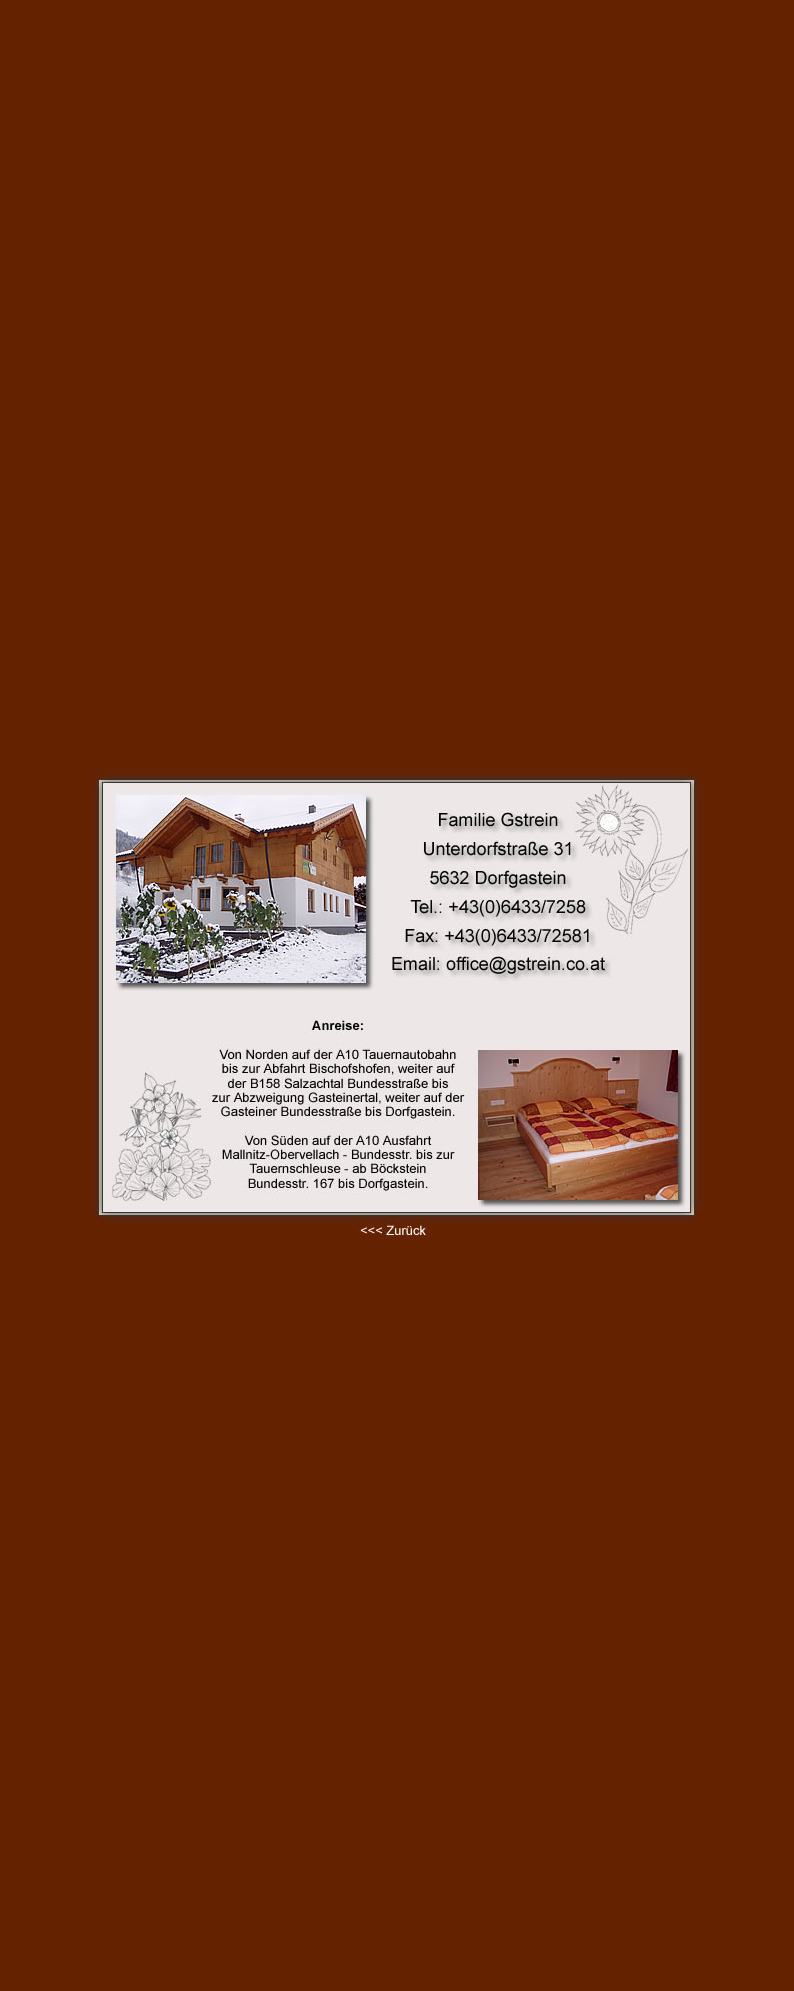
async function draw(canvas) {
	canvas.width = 794;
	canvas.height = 1991;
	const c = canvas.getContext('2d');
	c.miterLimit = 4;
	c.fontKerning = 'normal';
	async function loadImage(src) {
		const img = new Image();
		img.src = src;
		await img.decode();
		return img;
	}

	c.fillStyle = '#642200';
	c.fillRect(0, 0, 794, 1991);
	c.drawImage(await loadImage('img1.png'), 91, 770, 613, 472);
}

draw(document.querySelector('canvas'));
